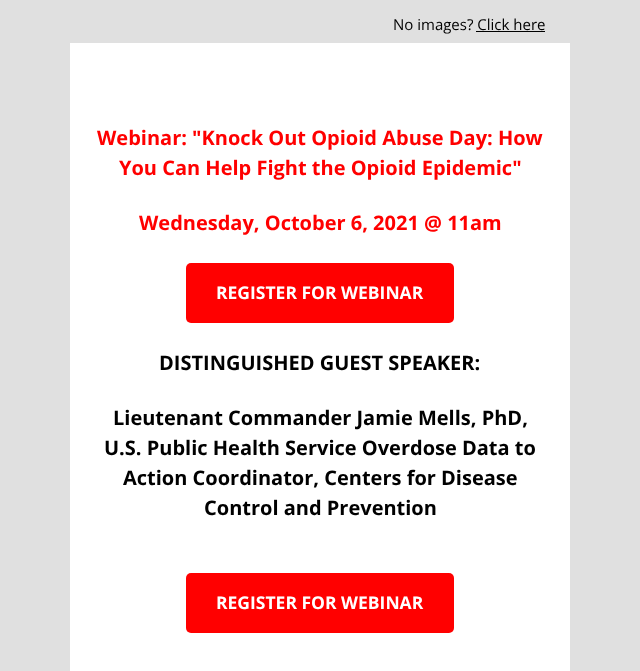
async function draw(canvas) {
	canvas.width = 640;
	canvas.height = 671;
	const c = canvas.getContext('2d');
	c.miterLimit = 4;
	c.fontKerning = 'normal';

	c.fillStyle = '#e0e0e0';
	c.fillRect(0, 0, 640, 671);
	c.font = '15px Open Sans';
	c.fillStyle = '#000';
	c.fillText('No images? Click here', 393, 30);
	c.fillRect(476, 31, 69, 1);
	c.fillStyle = '#fff';
	c.fillRect(70, 43, 500, 628);
	c.font = 'bold 20px Open Sans';
	c.fillStyle = '#f00';
	for (const [text, x, y] of [
		['Webinar: "Knock Out Opioid Abuse Day: How', 97, 145],
		['You Can Help Fight the Opioid Epidemic"', 119, 175],
		['Wednesday, October 6, 2021 @ 11am', 139, 230],
	]) {
		c.fillText(text, x, y);
	}
	c.beginPath();
	c.roundRect(186, 263, 268, 60, 5);
	c.fill();
	c.font = 'bold 17.5px Open Sans';
	c.fillStyle = '#fff';
	c.fillText('REGISTER FOR WEBINAR', 216, 299);
	c.font = 'bold 20px Open Sans';
	c.fillStyle = '#000';
	for (const [text, x, y] of [
		['DISTINGUISHED GUEST SPEAKER:', 159, 370],
		['Lieutenant Commander Jamie Mells, PhD,', 113, 425],
		['U.S. Public Health Service Overdose Data to', 104, 455],
		['Action Coordinator, Centers for Disease', 123, 485],
		['Control and Prevention', 204, 515],
	]) {
		c.fillText(text, x, y);
	}
	c.fillStyle = '#f00';
	c.beginPath();
	c.roundRect(186, 573, 268, 60, 5);
	c.fill();
	c.font = 'bold 17.5px Open Sans';
	c.fillStyle = '#fff';
	c.fillText('REGISTER FOR WEBINAR', 216, 609);
}

draw(document.querySelector('canvas'));
